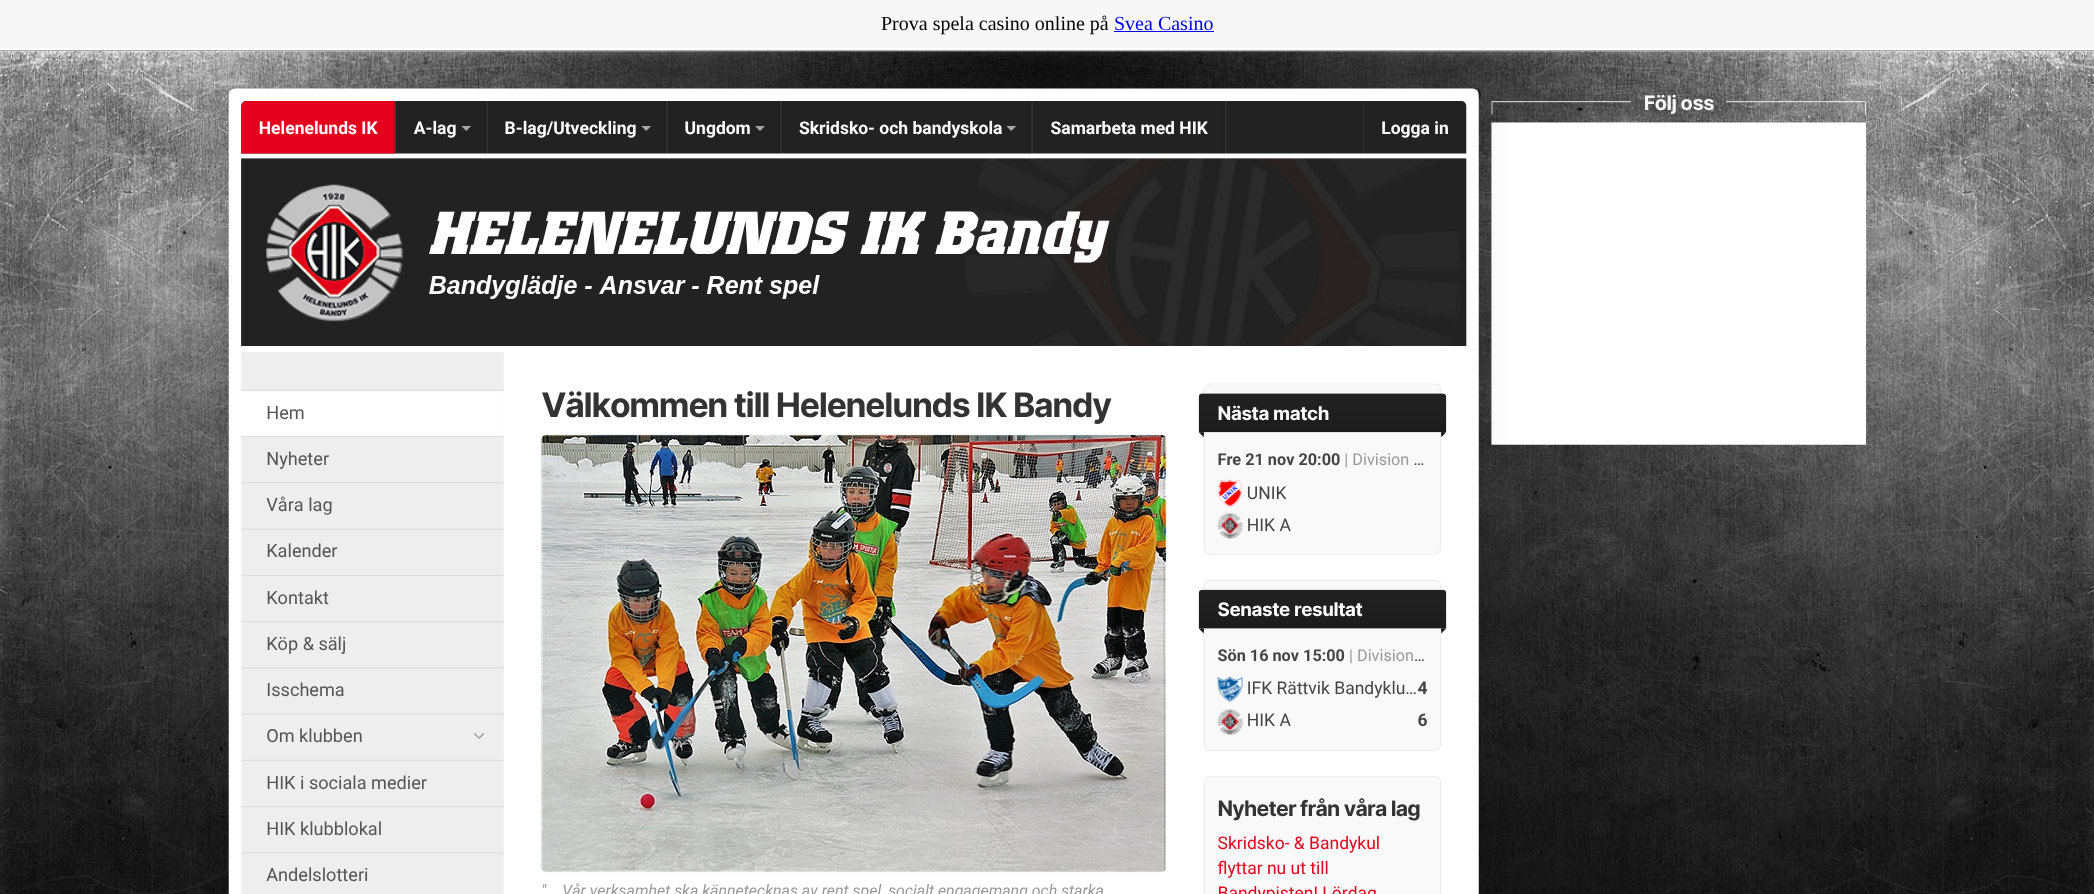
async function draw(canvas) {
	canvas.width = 2094;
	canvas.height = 894;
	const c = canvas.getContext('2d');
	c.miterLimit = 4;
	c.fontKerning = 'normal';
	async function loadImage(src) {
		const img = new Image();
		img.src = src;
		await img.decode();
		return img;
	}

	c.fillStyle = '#fff';
	c.fillRect(0, 0, 2094, 894);
	c.fillStyle = '#f7f7f7';
	c.fillRect(0, 0, 2094, 48);
	c.font = '20px Liberation Serif';
	c.fillStyle = '#000';
	c.fillText('Prova spela casino online på', 881, 30);
	c.fillStyle = '#00e';
	c.fillText('Svea Casino', 1114, 30);
	c.fillRect(1114, 31, 100, 1);
	c.fillStyle = '#aaa';
	c.fillRect(0, 50, 2094, 1);
	c.drawImage(await loadImage('img1.png'), 0, 51, 2094, 843);
}

draw(document.querySelector('canvas'));
